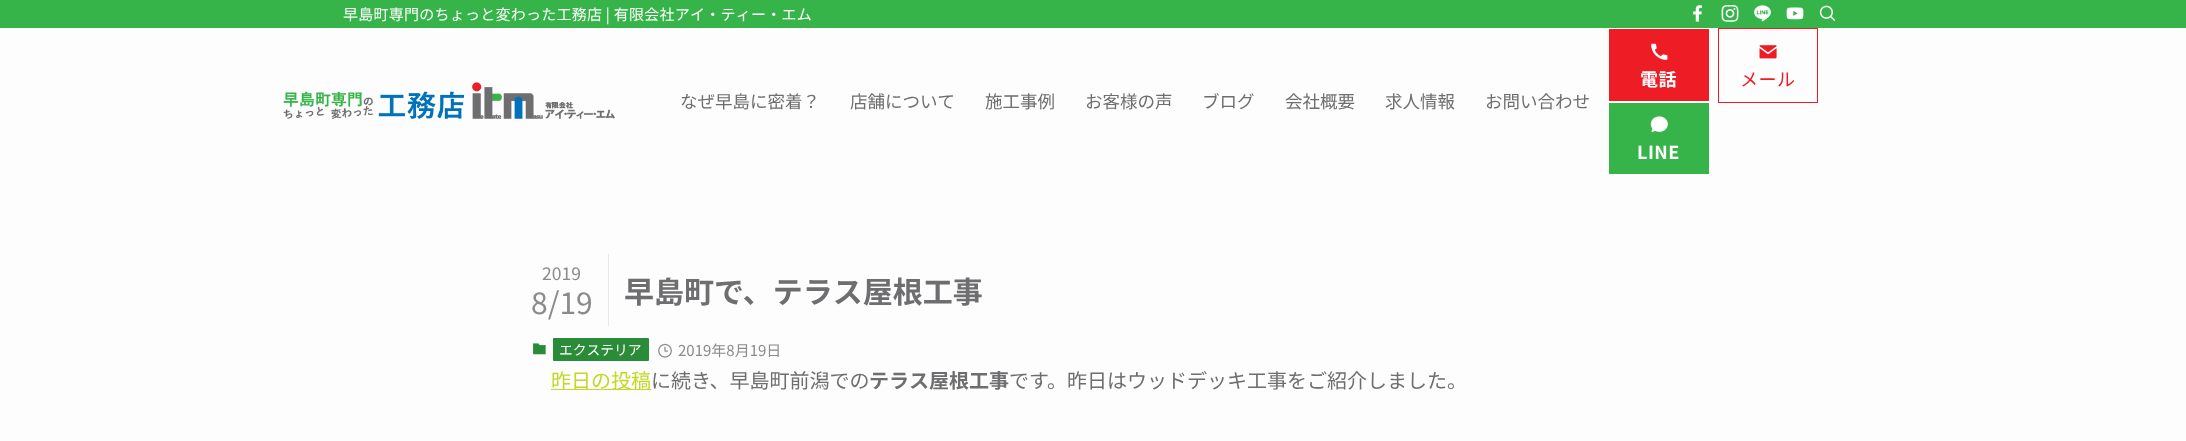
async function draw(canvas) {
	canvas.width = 2186;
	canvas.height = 441;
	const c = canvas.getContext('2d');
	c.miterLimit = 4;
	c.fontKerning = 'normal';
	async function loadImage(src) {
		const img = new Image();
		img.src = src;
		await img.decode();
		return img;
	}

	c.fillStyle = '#fdfdfd';
	c.fillRect(0, 0, 2186, 441);
	c.fillStyle = '#36b449';
	c.fillRect(0, 0, 2186, 28);
	c.letterSpacing = '0.25px';
	c.font = '15px Noto Sans JP';
	c.fillStyle = '#fff';
	c.fillText('早島町専門のちょっと変わった工務店 | 有限会社アイ・ティー・エム', 343, 20);
	c.drawImage(await loadImage('img1.png'), 1693, 5, 9, 17);
	c.drawImage(await loadImage('img2.png'), 1721, 5, 18, 17);
	c.drawImage(await loadImage('img3.png'), 1754, 5, 17, 17);
	c.drawImage(await loadImage('img4.png'), 1786, 7, 18, 13);
	c.drawImage(await loadImage('img5.png'), 1819, 5, 17, 16);
	c.drawImage(await loadImage('img6.png'), 283, 82, 332, 37);
	c.letterSpacing = '0px';
	c.font = '17.5px Noto Sans JP';
	c.fillStyle = '#6e6e70';
	for (const [text, x, y] of [
		['なぜ早島に密着？', 680, 108],
		['店舗について', 850, 108],
		['施工事例', 985, 108],
		['お客様の声', 1085, 108],
		['ブログ', 1202, 108],
		['会社概要', 1285, 108],
		['求人情報', 1385, 108],
		['お問い合わせ', 1485, 108],
	]) {
		c.fillText(text, x, y);
	}
	c.fillStyle = '#ee1c25';
	c.fillRect(1609, 29, 100, 72);
	c.drawImage(await loadImage('img7.png'), 1651, 43, 17, 17);
	c.letterSpacing = '0.5px';
	c.font = 'bold 18px Noto Sans JP';
	c.fillStyle = '#fff';
	c.fillText('電話', 1640, 86);
	c.strokeStyle = '#ee1c25';
	c.strokeRect(1718.5, 28.5, 99, 74);
	c.drawImage(await loadImage('img8.png'), 1759, 45, 18, 14);
	c.font = '18px Noto Sans JP';
	c.fillStyle = '#ee1c25';
	c.fillText('メール', 1740, 86);
	c.fillStyle = '#36b449';
	c.fillRect(1609, 103, 100, 71);
	c.drawImage(await loadImage('img9.png'), 1650, 116, 18, 17);
	c.font = 'bold 18px Noto Sans JP';
	c.fillStyle = '#fff';
	c.fillText('LINE', 1637, 159);
	c.fillStyle = '#e9e9e9';
	c.fillRect(608, 254, 1, 72);
	c.letterSpacing = '0px';
	c.font = '17.5px Noto Sans JP';
	c.fillStyle = '#8b8b8d';
	c.fillText('2019', 542, 280);
	c.font = '30px Noto Sans JP';
	c.fillText('8/19', 531, 314);
	c.font = 'bold 30px Noto Sans JP';
	c.fillStyle = '#6e6e70';
	c.fillText('早島町で、テラス屋根工事', 624, 303);
	c.drawImage(await loadImage('img10.png'), 533, 343, 13, 12);
	c.fillStyle = '#2a8b38';
	c.beginPath();
	c.roundRect(553, 338, 96, 23, 1);
	c.fill();
	c.font = '13.75px Noto Sans JP';
	c.fillStyle = '#fff';
	c.fillText('エクステリア', 559, 355);
	c.drawImage(await loadImage('img11.png'), 658, 343, 14, 15);
	c.font = '15px Noto Sans JP';
	c.fillStyle = '#8b8b8d';
	c.fillText('2019年8月19日', 678, 356);
	c.fillStyle = '#c3d825';
	c.fillRect(551, 389, 100, 1);
	c.font = '20px Noto Sans JP';
	c.fillText('昨日の投稿', 551, 388);
	c.fillStyle = '#6e6e70';
	c.fillText('に続き、早島町前潟での', 651, 388);
	c.font = 'bold 20px Noto Sans JP';
	c.fillText('テラス屋根工事', 869, 388);
	c.font = '20px Noto Sans JP';
	c.fillText('です。昨日はウッドデッキ工事をご紹介しました。', 1009, 388);
}

draw(document.querySelector('canvas'));
